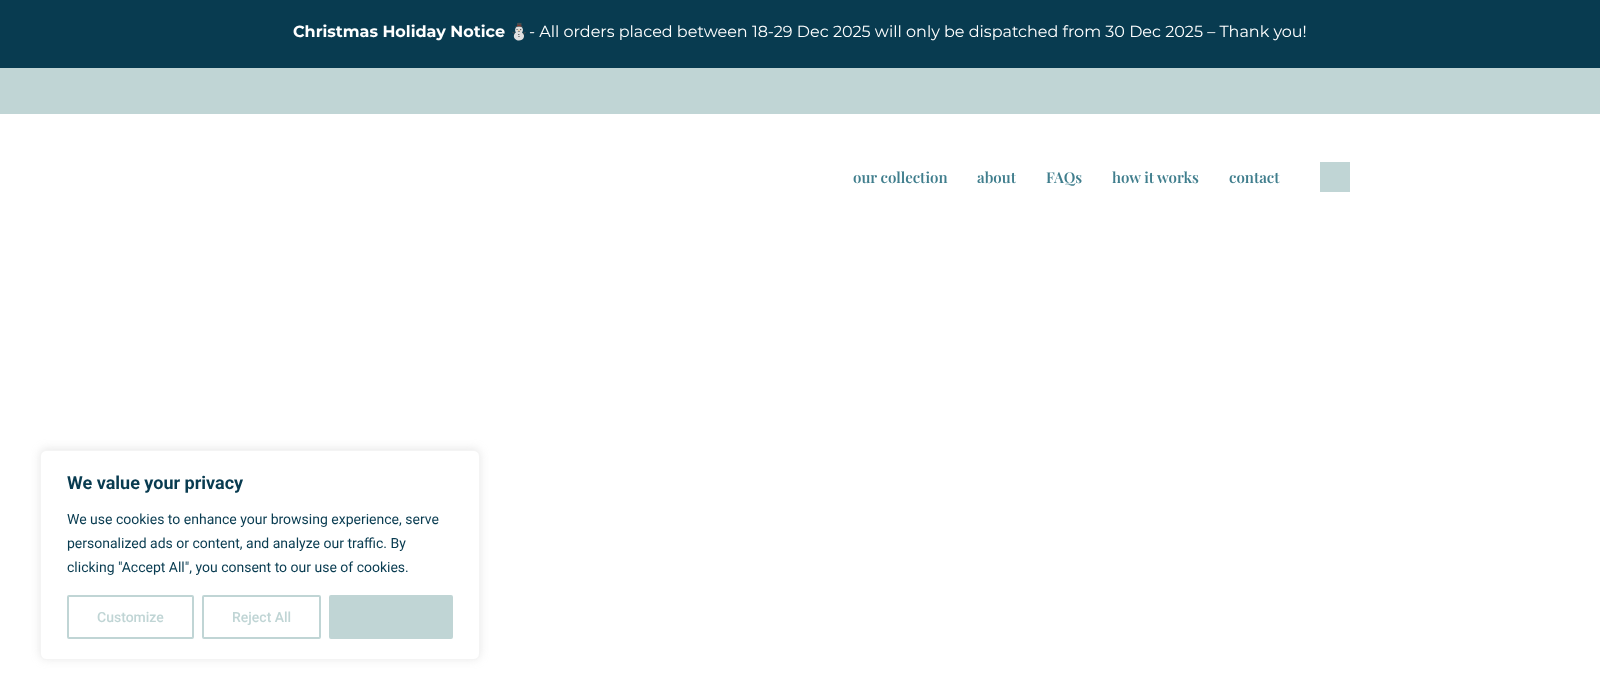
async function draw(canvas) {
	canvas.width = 1600;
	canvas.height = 700;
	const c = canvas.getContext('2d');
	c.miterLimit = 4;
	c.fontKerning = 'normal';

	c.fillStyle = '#fff';
	c.fillRect(0, 0, 1600, 700);
	c.fillStyle = '#083b50';
	c.fillRect(0, 0, 1600, 68);
	c.font = 'bold 16px Montserrat';
	c.fillStyle = '#fff';
	c.fillText('Christmas Holiday Notice', 293, 37);
	c.font = '16px Noto Color Emoji';
	c.fillText('⛄', 509, 37);
	c.font = '16px Montserrat';
	c.fillText('- All orders placed between 18-29 Dec 2025 will only be dispatched from 30 Dec 2025 – Thank you!', 529, 37);
	c.fillStyle = '#c0d5d5';
	c.fillRect(0, 68, 1600, 46);
	c.font = '600 15px Playfair Display';
	c.fillStyle = '#407e8d';
	for (const [text, x, y] of [
		['our collection', 853, 183],
		['about', 977, 183],
		['FAQs', 1046, 183],
		['how it works', 1112, 183],
		['contact', 1229, 183],
	]) {
		c.fillText(text, x, y);
	}
	c.fillStyle = '#c0d5d5';
	c.fillRect(1320, 162, 30, 30);
	c.fillStyle = '#acabab4d';
	c.filter = 'blur(5px)';
	c.beginPath();
	c.roundRect(40, 449, 440, 210, 6);
	c.fill();
	c.filter = 'none';
	c.fillStyle = '#fff';
	c.beginPath();
	c.roundRect(40.5, 450.5, 439, 209, 5.5);
	c.fill();
	c.strokeStyle = '#f4f4f4';
	c.stroke();
	c.font = 'bold 18px Roboto';
	c.fillStyle = '#083b50';
	c.fillText('We value your privacy', 67, 489);
	c.font = '14px Roboto';
	for (const [text, x, y] of [
		['We use cookies to enhance your browsing experience, serve', 67, 524],
		['personalized ads or content, and analyze our traffic. By', 67, 548],
		['clicking "Accept All", you consent to our use of cookies.', 67, 572],
	]) {
		c.fillText(text, x, y);
	}
	c.beginPath();
	c.roundRect(68, 596, 125, 42, 1);
	c.strokeStyle = '#c0d5d5';
	c.lineWidth = 2;
	c.stroke();
	c.font = '500 14px Roboto';
	c.fillStyle = '#c0d5d5';
	c.fillText('Customize', 97, 622);
	c.beginPath();
	c.roundRect(203, 596, 117, 42, 1);
	c.stroke();
	c.fillText('Reject All', 232, 622);
	c.beginPath();
	c.roundRect(330, 596, 122, 42, 1);
	c.fill();
	c.stroke();
}

draw(document.querySelector('canvas'));
